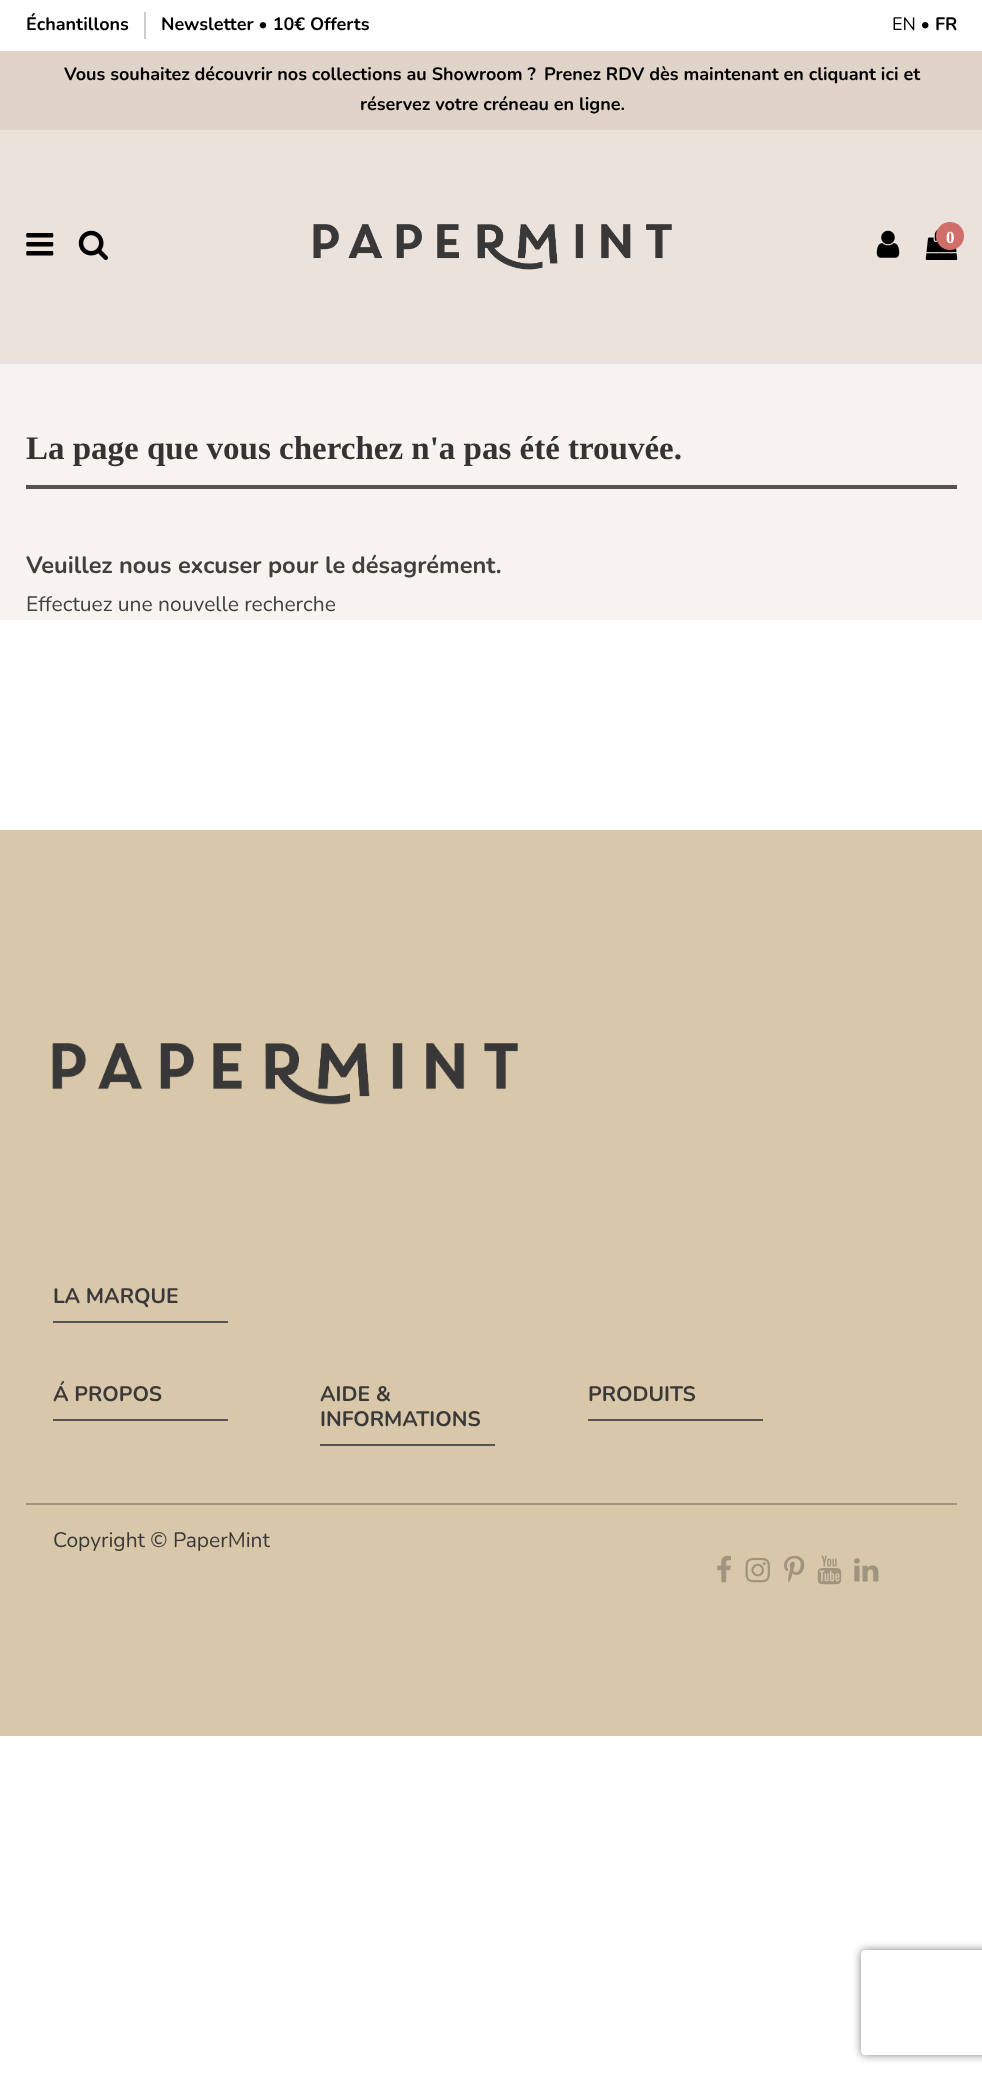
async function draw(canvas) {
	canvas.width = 982;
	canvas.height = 2078;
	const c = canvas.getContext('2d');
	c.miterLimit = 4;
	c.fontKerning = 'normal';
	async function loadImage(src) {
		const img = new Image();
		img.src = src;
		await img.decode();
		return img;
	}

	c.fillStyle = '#fff';
	c.fillRect(0, 0, 982, 2078);
	c.fillStyle = '#ebe3db';
	c.fillRect(0, 130, 982, 232);
	c.fillStyle = '#e0d3c7';
	c.fillRect(0, 51, 982, 79);
	c.font = 'bold 18px Nunito';
	c.fillStyle = '#000';
	c.fillText('Échantillons', 26, 30);
	c.fillStyle = '#ccc';
	c.fillRect(144, 12, 2, 27);
	c.fillStyle = '#000';
	c.fillText('Newsletter • 10€ Offerts', 161, 30);
	c.font = '18px Nunito';
	c.fillText('EN •', 892, 30);
	c.font = 'bold 18px Nunito';
	for (const [text, x, y] of [
		['FR', 935, 30],
		['Vous souhaitez découvrir nos collections au Showroom ?', 64, 80],
		['Prenez RDV dès maintenant en cliquant ici et', 544, 80],
		['réservez votre créneau en ligne.', 360, 110],
	]) {
		c.fillText(text, x, y);
	}
	c.fillStyle = '#e3e3e3';
	c.fillRect(0, 362, 982, 2);
	c.drawImage(await loadImage('img1.png'), 26, 233, 28, 23);
	c.drawImage(await loadImage('img2.png'), 78, 230, 30, 30);
	c.drawImage(await loadImage('img3.png'), 313, 224, 359, 46);
	c.drawImage(await loadImage('img4.png'), 876, 230, 24, 28);
	c.drawImage(await loadImage('img5.png'), 925, 229, 33, 31);
	c.fillStyle = '#d06e6a';
	c.beginPath();
	c.arc(950, 236, 14, 0, 2 * Math.PI);
	c.fill();
	c.font = 'bold 17px Liberation Serif';
	c.fillStyle = '#fff';
	c.fillText('0', 946, 243);
	c.fillStyle = '#f7f4f0';
	c.fillRect(0, 364, 982, 256);
	c.fillStyle = '#595050';
	c.fillRect(26, 485, 931, 4);
	c.font = 'bold 33px Liberation Serif';
	c.fillStyle = '#333';
	c.fillText('La page que vous cherchez n\'a pas été trouvée.', 26, 459);
	c.font = 'bold 23.6px Nunito';
	c.fillStyle = '#404040';
	c.fillText('Veuillez nous excuser pour le désagrément.', 26, 573);
	c.font = '21px Nunito';
	c.fillText('Effectuez une nouvelle recherche', 26, 611);
	c.fillStyle = '#d9c7aa';
	c.fillRect(0, 830, 982, 906);
	c.drawImage(await loadImage('img6.png'), 52, 1043, 466, 62);
	c.font = 'bold 21px Nunito';
	c.fillStyle = '#3a3939';
	c.fillText('LA MARQUE', 53, 1303);
	c.fillStyle = '#555';
	c.fillRect(53, 1321, 175, 2);
	c.fillStyle = '#3a3939';
	c.fillText('Á PROPOS', 53, 1401);
	c.fillStyle = '#555';
	c.fillRect(53, 1419, 175, 2);
	c.fillStyle = '#3a3939';
	c.fillText('AIDE &', 320, 1401);
	c.fillText('INFORMATIONS', 320, 1426);
	c.fillStyle = '#555';
	c.fillRect(320, 1444, 175, 2);
	c.fillStyle = '#3a3939';
	c.fillText('PRODUITS', 588, 1401);
	c.fillStyle = '#555';
	c.fillRect(588, 1419, 175, 2);
	c.fillStyle = '#a0937f';
	c.fillRect(26, 1503, 931, 2);
	c.font = '21px Nunito';
	c.fillStyle = '#3a3939';
	c.fillText('Copyright © PaperMint', 53, 1547);
	c.drawImage(await loadImage('img7.png'), 717, 1555, 14, 28);
	c.drawImage(await loadImage('img8.png'), 745, 1557, 25, 26);
	c.drawImage(await loadImage('img9.png'), 784, 1555, 21, 28);
	c.drawImage(await loadImage('img10.png'), 817, 1555, 25, 30);
	c.drawImage(await loadImage('img11.png'), 854, 1558, 25, 24);
	c.save();
	c.beginPath();
	c.moveTo(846, 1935);
	c.lineTo(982, 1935);
	c.lineTo(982, 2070);
	c.lineTo(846, 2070);
	c.closePath();
	c.moveTo(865, 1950);
	c.lineTo(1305, 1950);
	c.bezierCurveTo(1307, 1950, 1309, 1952, 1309, 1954);
	c.lineTo(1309, 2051);
	c.bezierCurveTo(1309, 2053, 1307, 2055, 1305, 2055);
	c.lineTo(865, 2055);
	c.bezierCurveTo(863, 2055, 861, 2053, 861, 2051);
	c.lineTo(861, 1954);
	c.bezierCurveTo(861, 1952, 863, 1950, 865, 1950);
	c.closePath();
	c.clip('evenodd');
	c.fillStyle = '#808080';
	c.filter = 'blur(4.5px)';
	c.beginPath();
	c.roundRect(861, 1950, 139, 105, 4);
	c.fill();
	c.filter = 'none';
	c.restore();
}

draw(document.querySelector('canvas'));
